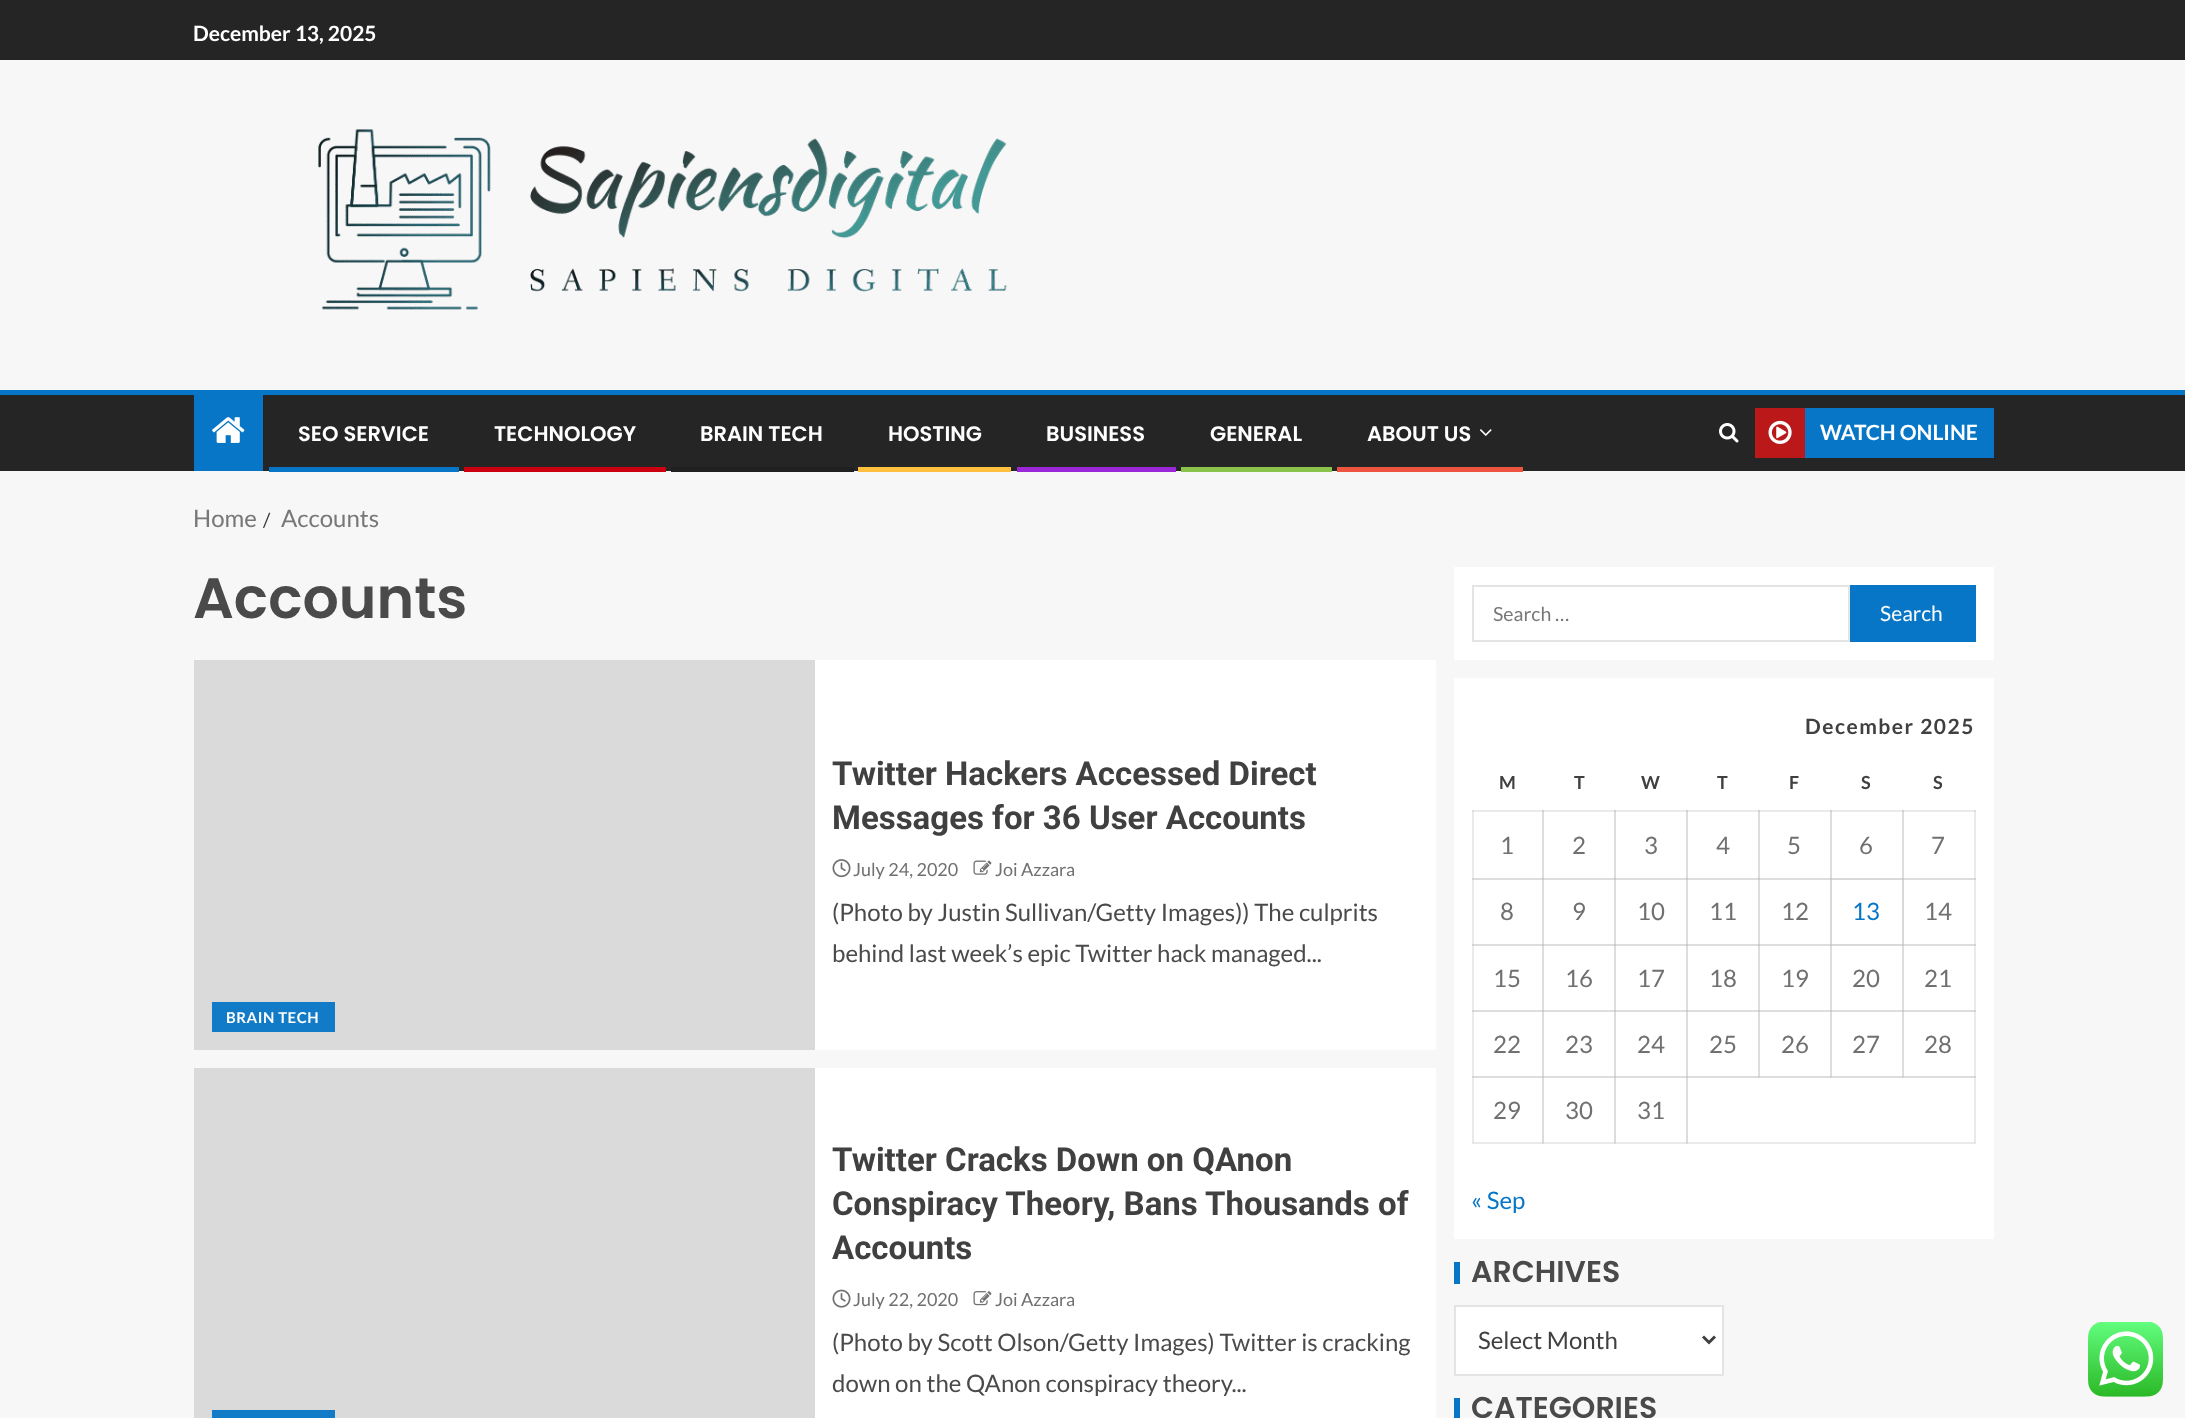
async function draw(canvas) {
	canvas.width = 2185;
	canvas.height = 1418;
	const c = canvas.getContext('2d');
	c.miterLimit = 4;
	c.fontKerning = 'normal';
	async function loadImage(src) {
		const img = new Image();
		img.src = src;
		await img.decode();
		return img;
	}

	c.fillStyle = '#f7f7f7';
	c.fillRect(0, 0, 2185, 1418);
	c.fillStyle = '#252525';
	c.fillRect(0, 0, 2185, 60);
	c.font = 'bold 21px Lato';
	c.fillStyle = '#fff';
	c.fillText('December 13, 2025', 193, 41);
	c.drawImage(await loadImage('img1.png'), 318, 129, 689, 181);
	for (const [x, y, w, h, color] of [
		[0, 395, 2185, 76, '#252525'],
		[0, 390, 2185, 5, '#0776c6'],
		[194, 395, 69, 76, '#0776c6'],
	]) {
		c.fillStyle = color;
		c.fillRect(x, y, w, h);
	}
	c.drawImage(await loadImage('img2.png'), 212, 417, 33, 26);
	c.font = '600 21px Poppins';
	c.fillStyle = '#fff';
	c.fillText('SEO SERVICE', 298, 441);
	c.fillStyle = '#0776c6';
	c.fillRect(269, 467, 190, 5);
	c.fillStyle = '#fff';
	c.fillText('TECHNOLOGY', 494, 441);
	c.fillStyle = '#cc0010';
	c.fillRect(464, 467, 202, 5);
	c.fillStyle = '#fff';
	c.fillText('BRAIN TECH', 700, 441);
	c.fillStyle = '#202020';
	c.fillRect(671, 467, 183, 5);
	c.fillStyle = '#fff';
	c.fillText('HOSTING', 888, 441);
	c.fillStyle = '#ffbf3f';
	c.fillRect(858, 467, 153, 5);
	c.fillStyle = '#fff';
	c.fillText('BUSINESS', 1046, 441);
	c.fillStyle = '#9c27d9';
	c.fillRect(1017, 467, 159, 5);
	c.fillStyle = '#fff';
	c.fillText('GENERAL', 1210, 441);
	c.fillStyle = '#8bc34a';
	c.fillRect(1181, 467, 151, 5);
	c.fillStyle = '#fff';
	c.fillText('ABOUT US', 1367, 441);
	c.drawImage(await loadImage('img3.png'), 1479, 429, 13, 7);
	c.fillStyle = '#ed553f';
	c.fillRect(1337, 467, 186, 5);
	c.drawImage(await loadImage('img4.png'), 1719, 423, 20, 20);
	c.fillStyle = '#bb1919';
	c.fillRect(1755, 408, 50, 50);
	c.drawImage(await loadImage('img5.png'), 1768, 420, 24, 24);
	c.fillStyle = '#0776c6';
	c.fillRect(1805, 408, 189, 50);
	c.font = 'bold 21px Lato';
	c.fillStyle = '#fff';
	c.fillText('WATCH ONLINE', 1820, 440);
	c.font = '24px Lato';
	c.fillStyle = '#777';
	c.fillText('Home', 193, 527);
	c.font = '19.5px Lato';
	c.fillStyle = '#393e46';
	c.fillText('/', 263, 527);
	c.font = '24px Lato';
	c.fillStyle = '#777';
	c.fillText('Accounts', 281, 527);
	c.font = '600 57px Poppins';
	c.fillStyle = '#4a4a4a';
	c.fillText('Accounts', 193, 618);
	c.fillStyle = '#fff';
	c.fillRect(815, 660, 621, 390);
	c.font = 'bold 33px Roboto';
	c.fillStyle = '#404040';
	c.fillText('Twitter Hackers Accessed Direct', 832, 785);
	c.fillText('Messages for 36 User Accounts', 832, 829);
	c.drawImage(await loadImage('img6.png'), 832, 859, 19, 19);
	c.font = '18px Lato';
	c.fillStyle = '#707070';
	c.fillText('July 24, 2020', 853, 876);
	c.drawImage(await loadImage('img7.png'), 973, 860, 19, 15);
	c.fillText('Joi Azzara', 995, 876);
	c.font = '24px Lato';
	c.fillStyle = '#4a4a4a';
	c.fillText('(Photo by Justin Sullivan/Getty Images)) The culprits', 832, 921);
	c.fillText('behind last week’s epic Twitter hack managed...', 832, 962);
	c.fillStyle = '#dadada';
	c.fillRect(194, 660, 621, 390);
	c.fillStyle = '#127bc7';
	c.fillRect(212, 1002, 123, 30);
	c.letterSpacing = '0.5px';
	c.font = 'bold 15px Lato';
	c.fillStyle = '#fff';
	c.fillText('BRAIN TECH', 226, 1023);
	for (const [x, y, w, h, color] of [
		[815, 1068, 621, 350, '#fff'],
		[194, 1068, 621, 350, '#dadada'],
		[212, 1410, 123, 8, '#127bc7'],
	]) {
		c.fillStyle = color;
		c.fillRect(x, y, w, h);
	}
	c.letterSpacing = '0px';
	c.font = 'bold 33px Roboto';
	c.fillStyle = '#404040';
	for (const [text, x, y] of [
		['Twitter Cracks Down on QAnon', 832, 1171],
		['Conspiracy Theory, Bans Thousands of', 832, 1215],
		['Accounts', 832, 1259],
	]) {
		c.fillText(text, x, y);
	}
	c.drawImage(await loadImage('img8.png'), 832, 1289, 19, 19);
	c.font = '18px Lato';
	c.fillStyle = '#707070';
	c.fillText('July 22, 2020', 853, 1306);
	c.drawImage(await loadImage('img9.png'), 973, 1291, 19, 15);
	c.fillText('Joi Azzara', 995, 1306);
	c.font = '24px Lato';
	c.fillStyle = '#4a4a4a';
	c.fillText('(Photo by Scott Olson/Getty Images) Twitter is cracking', 832, 1351);
	c.fillText('down on the QAnon conspiracy theory...', 832, 1392);
	c.fillStyle = '#fff';
	c.fillRect(1454, 567, 540, 93);
	c.strokeStyle = '#e4e4e4';
	c.lineWidth = 2;
	c.strokeRect(1473, 586, 376, 55);
	c.font = '19.5px Lato';
	c.fillStyle = '#777';
	c.fillText('Search …', 1493, 621);
	c.fillStyle = '#0776c6';
	c.fillRect(1850, 585, 126, 57);
	c.font = '21px Lato';
	c.fillStyle = '#fff';
	c.fillText('Search', 1880, 621);
	for (const [x, y, w, h, color] of [
		[1454, 678, 540, 561, '#fff'],
		[1472, 810, 2, 333, '#eaeaea'],
		[1472, 810, 72, 2, '#eaeaea'],
		[1472, 810, 2, 2, '#ddd'],
		[1542, 810, 2, 69, '#ddd'],
		[1542, 810, 74, 2, '#eaeaea'],
		[1542, 810, 2, 2, '#d0d0d0'],
		[1614, 810, 2, 69, '#ddd'],
		[1614, 810, 74, 2, '#eaeaea'],
		[1614, 810, 2, 2, '#d0d0d0'],
		[1686, 810, 2, 69, '#ddd'],
		[1686, 810, 74, 2, '#eaeaea'],
		[1686, 810, 2, 2, '#d0d0d0'],
		[1758, 810, 2, 69, '#ddd'],
		[1758, 810, 74, 2, '#eaeaea'],
		[1758, 810, 2, 2, '#d0d0d0'],
		[1830, 810, 2, 69, '#ddd'],
		[1830, 810, 74, 2, '#eaeaea'],
		[1830, 810, 2, 2, '#d0d0d0'],
		[1902, 810, 2, 69, '#ddd'],
		[1974, 810, 2, 267, '#eaeaea'],
		[1472, 878, 72, 2, '#ddd'],
		[1472, 879, 2, 1, '#d5d5d5'],
		[1472, 878, 2, 1, '#d0d0d0'],
		[1542, 878, 2, 67, '#ddd'],
		[1542, 878, 74, 2, '#ddd'],
		[1542, 879, 2, 1, '#cbcbcb'],
		[1542, 878, 2, 1, '#c9c9c9'],
		[1614, 878, 2, 67, '#ddd'],
		[1614, 878, 74, 2, '#ddd'],
		[1614, 879, 2, 1, '#cbcbcb'],
		[1614, 878, 2, 1, '#c9c9c9'],
		[1686, 878, 2, 67, '#ddd'],
		[1686, 878, 74, 2, '#ddd'],
		[1686, 879, 2, 1, '#cbcbcb'],
		[1686, 878, 2, 1, '#c9c9c9'],
		[1758, 878, 2, 67, '#ddd'],
		[1758, 878, 74, 2, '#ddd'],
		[1758, 879, 2, 1, '#cbcbcb'],
		[1758, 878, 2, 1, '#c9c9c9'],
		[1830, 878, 2, 67, '#d9d9d9'],
		[1830, 878, 74, 2, '#d9d9d9'],
		[1830, 879, 2, 1, '#cacaca'],
		[1830, 878, 2, 1, '#c9c9c9'],
		[1902, 878, 2, 67, '#d9d9d9'],
		[1472, 944, 72, 2, '#ddd'],
		[1472, 945, 2, 1, '#d5d5d5'],
		[1472, 944, 2, 1, '#d0d0d0'],
		[1542, 944, 2, 67, '#ddd'],
		[1542, 944, 74, 2, '#ddd'],
		[1542, 945, 2, 1, '#cbcbcb'],
		[1542, 944, 2, 1, '#c9c9c9'],
		[1614, 944, 2, 67, '#ddd'],
		[1614, 944, 74, 2, '#ddd'],
		[1614, 945, 2, 1, '#cbcbcb'],
		[1614, 944, 2, 1, '#c9c9c9'],
		[1686, 944, 2, 67, '#ddd'],
		[1686, 944, 74, 2, '#ddd'],
		[1686, 945, 2, 1, '#cbcbcb'],
		[1686, 944, 2, 1, '#c9c9c9'],
		[1758, 944, 2, 67, '#ddd'],
		[1758, 944, 74, 2, '#ddd'],
		[1758, 945, 2, 1, '#cbcbcb'],
		[1758, 944, 2, 1, '#c9c9c9'],
		[1830, 944, 2, 67, '#ddd'],
		[1830, 944, 74, 2, '#d9d9d9'],
		[1830, 945, 2, 1, '#cacaca'],
		[1830, 944, 2, 1, '#c9c9c9'],
		[1902, 944, 2, 67, '#ddd'],
		[1472, 1010, 72, 2, '#ddd'],
		[1472, 1011, 2, 1, '#d5d5d5'],
		[1472, 1010, 2, 1, '#d0d0d0'],
		[1542, 1010, 2, 67, '#ddd'],
		[1542, 1010, 74, 2, '#ddd'],
		[1542, 1011, 2, 1, '#cbcbcb'],
		[1542, 1010, 2, 1, '#c9c9c9'],
		[1614, 1010, 2, 67, '#ddd'],
		[1614, 1010, 74, 2, '#ddd'],
		[1614, 1011, 2, 1, '#cbcbcb'],
		[1614, 1010, 2, 1, '#c9c9c9'],
		[1686, 1010, 2, 67, '#ddd'],
		[1686, 1010, 74, 2, '#ddd'],
		[1686, 1011, 2, 1, '#cbcbcb'],
		[1686, 1010, 2, 1, '#c9c9c9'],
		[1758, 1010, 2, 67, '#ddd'],
		[1758, 1010, 74, 2, '#ddd'],
		[1758, 1011, 2, 1, '#cbcbcb'],
		[1758, 1010, 2, 1, '#c9c9c9'],
		[1830, 1010, 2, 67, '#ddd'],
		[1830, 1010, 74, 2, '#ddd'],
		[1830, 1011, 2, 1, '#cbcbcb'],
		[1830, 1010, 2, 1, '#c9c9c9'],
		[1902, 1010, 2, 67, '#ddd'],
		[1472, 1142, 72, 2, '#eaeaea'],
		[1472, 1142, 2, 1, '#e0e0e0'],
		[1472, 1076, 72, 2, '#ddd'],
		[1472, 1077, 2, 1, '#d7d7d7'],
		[1472, 1076, 2, 1, '#d1d1d1'],
		[1542, 1076, 2, 67, '#ddd'],
		[1542, 1142, 74, 2, '#eaeaea'],
		[1542, 1143, 2, 1, '#ddd'],
		[1542, 1142, 2, 1, '#d1d1d1'],
		[1542, 1076, 74, 2, '#ddd'],
		[1542, 1077, 2, 1, '#cbcbcb'],
		[1542, 1076, 2, 1, '#c9c9c9'],
		[1614, 1076, 2, 67, '#ddd'],
		[1614, 1142, 74, 2, '#eaeaea'],
		[1614, 1143, 2, 1, '#ddd'],
		[1614, 1142, 2, 1, '#d1d1d1'],
		[1614, 1076, 74, 2, '#ddd'],
		[1614, 1077, 2, 1, '#cbcbcb'],
		[1614, 1076, 2, 1, '#c9c9c9'],
		[1686, 1076, 2, 67, '#ddd'],
		[1686, 1142, 290, 2, '#eaeaea'],
		[1686, 1143, 2, 1, '#ddd'],
		[1686, 1142, 2, 1, '#d1d1d1'],
		[1974, 1076, 2, 67, '#eaeaea'],
		[1974, 1142, 2, 1, '#e0e0e0'],
	]) {
		c.fillStyle = color;
		c.fillRect(x, y, w, h);
	}
	c.letterSpacing = '1.5px';
	c.font = 'bold 21px Lato';
	c.fillStyle = '#404040';
	c.fillText('December 2025', 1805, 734);
	c.letterSpacing = '0px';
	c.font = 'bold 18px Lato';
	for (const [text, x, y] of [
		['M', 1499, 789],
		['T', 1574, 789],
		['W', 1641, 789],
		['T', 1717, 789],
		['F', 1789, 789],
		['S', 1861, 789],
		['S', 1933, 789],
	]) {
		c.fillText(text, x, y);
	}
	c.font = '24px Lato';
	c.fillStyle = '#707070';
	for (const [text, x, y] of [
		['1', 1500, 854],
		['2', 1572, 854],
		['3', 1644, 854],
		['4', 1716, 854],
		['5', 1787, 854],
		['6', 1859, 854],
	]) {
		c.fillText(text, x, y);
	}
	for (const [x, y, w, h, color] of [
		[1902, 810, 74, 2, '#eaeaea'],
		[1902, 810, 2, 2, '#d0d0d0'],
		[1974, 810, 2, 2, '#ddd'],
	]) {
		c.fillStyle = color;
		c.fillRect(x, y, w, h);
	}
	c.fillStyle = '#707070';
	for (const [text, x, y] of [
		['7', 1931, 854],
		['8', 1500, 920],
		['9', 1572, 920],
		['10', 1637, 920],
		['11', 1709, 920],
		['12', 1781, 920],
	]) {
		c.fillText(text, x, y);
	}
	c.fillStyle = '#0776c6';
	c.fillText('13', 1852, 920);
	for (const [x, y, w, h, color] of [
		[1902, 878, 74, 2, '#ddd'],
		[1902, 879, 2, 1, '#cacaca'],
		[1902, 878, 2, 1, '#c9c9c9'],
		[1974, 879, 2, 1, '#d5d5d5'],
		[1974, 878, 2, 1, '#d0d0d0'],
	]) {
		c.fillStyle = color;
		c.fillRect(x, y, w, h);
	}
	c.fillStyle = '#707070';
	for (const [text, x, y] of [
		['14', 1924, 920],
		['15', 1493, 987],
		['16', 1565, 987],
		['17', 1637, 987],
		['18', 1709, 987],
		['19', 1781, 987],
		['20', 1852, 987],
	]) {
		c.fillText(text, x, y);
	}
	for (const [x, y, w, h, color] of [
		[1902, 944, 74, 2, '#ddd'],
		[1902, 945, 2, 1, '#cbcbcb'],
		[1902, 944, 2, 1, '#c9c9c9'],
		[1974, 945, 2, 1, '#d5d5d5'],
		[1974, 944, 2, 1, '#d0d0d0'],
	]) {
		c.fillStyle = color;
		c.fillRect(x, y, w, h);
	}
	c.fillStyle = '#707070';
	for (const [text, x, y] of [
		['21', 1924, 987],
		['22', 1493, 1053],
		['23', 1565, 1053],
		['24', 1637, 1053],
		['25', 1709, 1053],
		['26', 1781, 1053],
		['27', 1852, 1053],
	]) {
		c.fillText(text, x, y);
	}
	for (const [x, y, w, h, color] of [
		[1902, 1010, 74, 2, '#ddd'],
		[1902, 1011, 2, 1, '#cbcbcb'],
		[1902, 1010, 2, 1, '#c9c9c9'],
		[1974, 1011, 2, 1, '#d5d5d5'],
		[1974, 1010, 2, 1, '#d0d0d0'],
	]) {
		c.fillStyle = color;
		c.fillRect(x, y, w, h);
	}
	c.fillStyle = '#707070';
	c.fillText('28', 1924, 1053);
	for (const [x, y, w, h, color] of [
		[1686, 1076, 290, 2, '#ddd'],
		[1758, 1077, 2, 1, '#d5d5d5'],
		[1758, 1076, 2, 1, '#cdcdcd'],
		[1830, 1077, 2, 1, '#d5d5d5'],
		[1830, 1076, 2, 1, '#cdcdcd'],
		[1902, 1077, 2, 1, '#d5d5d5'],
		[1902, 1076, 2, 1, '#cdcdcd'],
		[1686, 1077, 2, 1, '#cbcbcb'],
		[1686, 1076, 2, 1, '#c9c9c9'],
		[1974, 1077, 2, 1, '#d7d7d7'],
		[1974, 1076, 2, 1, '#d1d1d1'],
	]) {
		c.fillStyle = color;
		c.fillRect(x, y, w, h);
	}
	c.fillStyle = '#707070';
	for (const [text, x, y] of [
		['29', 1493, 1119],
		['30', 1565, 1119],
		['31', 1637, 1119],
	]) {
		c.fillText(text, x, y);
	}
	c.fillStyle = '#0776c6';
	c.fillText('« Sep', 1471, 1209);
	c.fillRect(1454, 1262, 6, 22);
	c.font = '600 30px Poppins';
	c.fillStyle = '#4a4a4a';
	c.fillText('ARCHIVES', 1471, 1282);
	c.fillStyle = '#fff';
	c.beginPath();
	c.rect(1455, 1306, 268, 69);
	c.fill();
	c.stroke();
	c.beginPath();
	c.moveTo(1703, 1336.5);
	c.lineTo(1709, 1342.5);
	c.lineTo(1715, 1336.5);
	c.strokeStyle = '#404040';
	c.lineWidth = 3;
	c.stroke();
	c.font = '24px Lato';
	c.fillStyle = '#404040';
	c.fillText('Select Month', 1478, 1349);
	c.fillStyle = '#0776c6';
	c.fillRect(1454, 1398, 6, 20);
	c.font = '600 30px Poppins';
	c.fillStyle = '#4a4a4a';
	c.fillText('CATEGORIES', 1471, 1418);
	c.drawImage(await loadImage('img10.png'), 2088, 1322, 75, 75);
}

draw(document.querySelector('canvas'));
